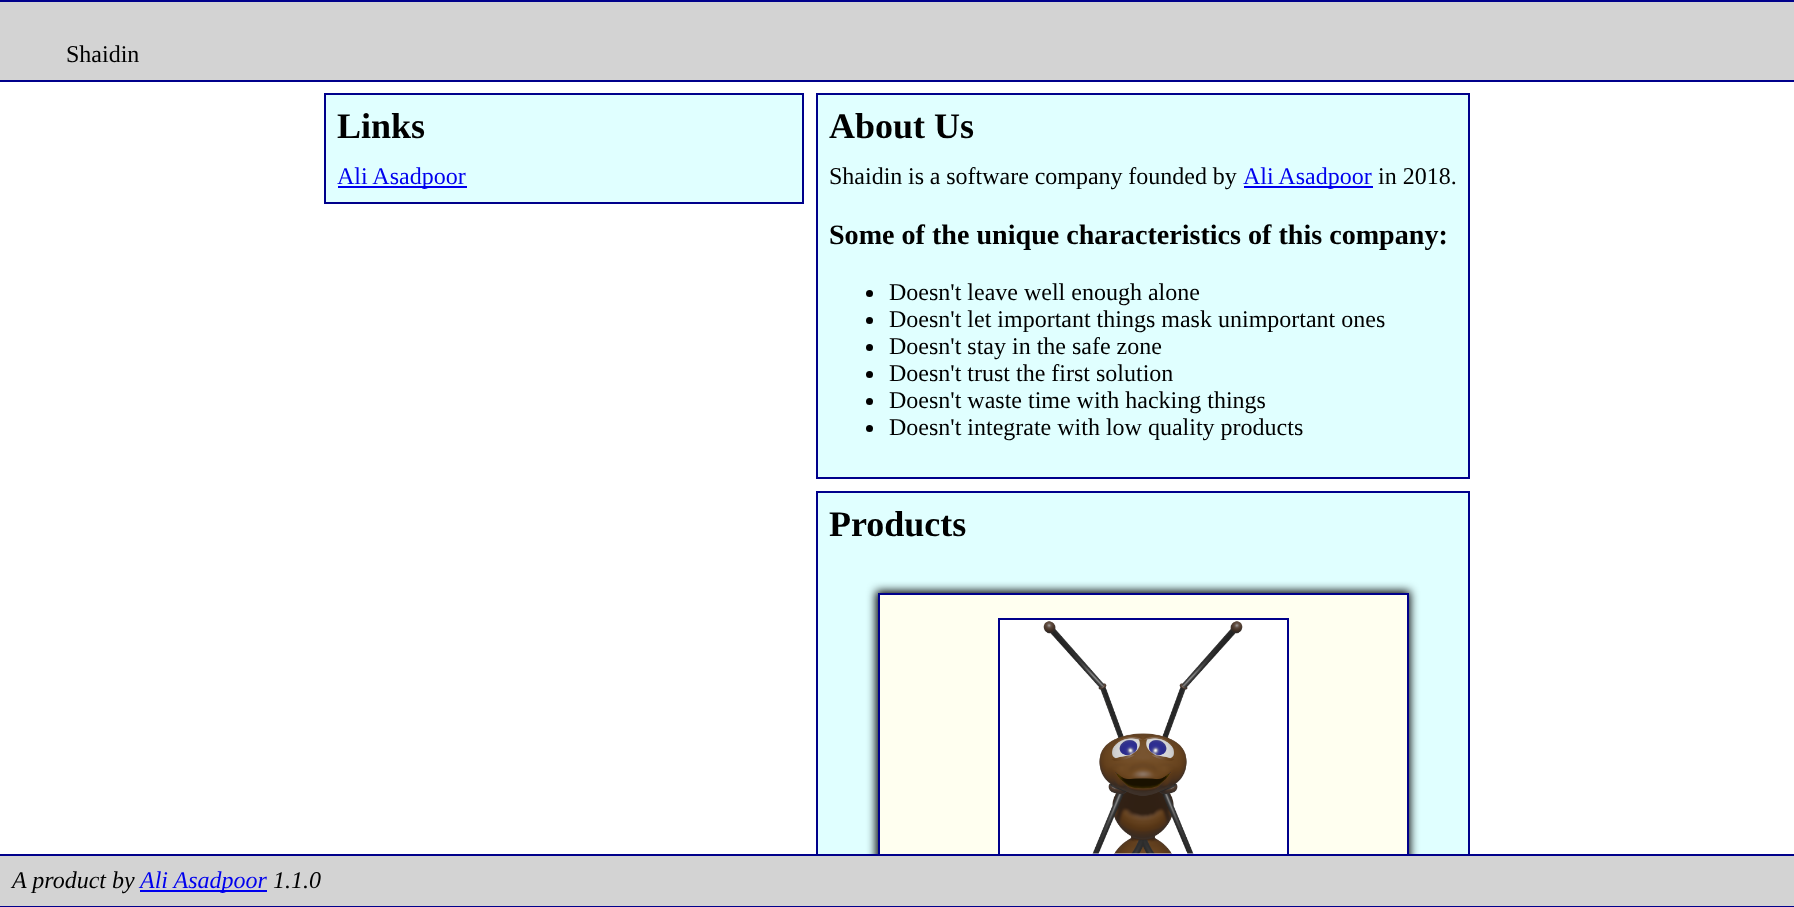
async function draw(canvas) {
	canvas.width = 1794;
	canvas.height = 907;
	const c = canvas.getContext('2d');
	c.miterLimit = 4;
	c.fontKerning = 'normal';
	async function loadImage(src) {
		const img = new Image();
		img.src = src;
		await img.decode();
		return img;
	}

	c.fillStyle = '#fff';
	c.fillRect(0, 0, 1794, 907);
	for (const [x, y, w, h, color] of [
		[0, 2, 1794, 78, '#d3d3d3'],
		[0, 0, 1794, 2, '#00008b'],
		[0, 80, 1794, 2, '#00008b'],
	]) {
		c.fillStyle = color;
		c.fillRect(x, y, w, h);
	}
	c.font = '24px Liberation Serif';
	c.fillStyle = '#000';
	c.fillText('Shaidin', 66, 62);
	c.fillStyle = '#e0ffff';
	c.beginPath();
	c.rect(325, 94, 478, 109);
	c.fill();
	c.strokeStyle = '#00008b';
	c.lineWidth = 2;
	c.stroke();
	c.font = 'bold 36px Liberation Serif';
	c.fillStyle = '#000';
	c.fillText('Links', 337, 138);
	c.fillStyle = '#00e';
	c.fillRect(338, 186, 129, 2);
	c.font = '24px Liberation Serif';
	c.fillText('Ali Asadpoor', 337, 184);
	c.fillStyle = '#e0ffff';
	c.beginPath();
	c.rect(817, 94, 652, 384);
	c.fill();
	c.stroke();
	c.font = 'bold 36px Liberation Serif';
	c.fillStyle = '#000';
	c.fillText('About Us', 829, 138);
	c.wordSpacing = '-0.25px';
	c.font = '24px Liberation Serif';
	c.fillText('Shaidin is a software company founded by', 829, 184);
	c.fillStyle = '#00e';
	c.fillRect(1244, 186, 129, 2);
	c.wordSpacing = '0px';
	c.fillText('Ali Asadpoor', 1243, 184);
	c.fillStyle = '#000';
	c.fillText('in 2018.', 1378, 184);
	c.font = 'bold 28.1px Liberation Serif';
	c.fillText('Some of the unique characteristics of this company:', 829, 244);
	c.beginPath();
	c.arc(869.5, 293.5, 3.5, 0, 2 * Math.PI);
	c.fill();
	c.font = '24px Liberation Serif';
	c.fillText('Doesn\'t leave well enough alone', 889, 300);
	c.beginPath();
	c.arc(869.5, 320.5, 3.5, 0, 2 * Math.PI);
	c.fill();
	c.fillText('Doesn\'t let important things mask unimportant ones', 889, 327);
	c.beginPath();
	c.arc(869.5, 347.5, 3.5, 0, 2 * Math.PI);
	c.fill();
	c.fillText('Doesn\'t stay in the safe zone', 889, 354);
	c.beginPath();
	c.arc(869.5, 374.5, 3.5, 0, 2 * Math.PI);
	c.fill();
	c.fillText('Doesn\'t trust the first solution', 889, 381);
	c.beginPath();
	c.arc(869.5, 401.5, 3.5, 0, 2 * Math.PI);
	c.fill();
	c.fillText('Doesn\'t waste time with hacking things', 889, 408);
	c.beginPath();
	c.arc(869.5, 428.5, 3.5, 0, 2 * Math.PI);
	c.fill();
	c.fillText('Doesn\'t integrate with low quality products', 889, 435);
	for (const [x, y, w, h, color] of [
		[818, 493, 650, 361, '#e0ffff'],
		[0, 856, 1794, 50, '#d3d3d3'],
		[0, 854, 1794, 2, '#00008b'],
		[0, 906, 1794, 1, '#00008b'],
	]) {
		c.fillStyle = color;
		c.fillRect(x, y, w, h);
	}
	c.save();
	c.beginPath();
	c.rect(816, 81, 654, 773);
	c.clip();
	c.strokeRect(817, 492, 652, 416);
	c.restore();
	c.font = 'bold 36px Liberation Serif';
	c.fillStyle = '#000';
	c.fillText('Products', 829, 536);
	c.save();
	c.beginPath();
	c.rect(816, 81, 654, 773);
	c.clip();
	c.filter = 'blur(5px)';
	c.beginPath();
	c.rect(876, 591, 534, 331);
	c.fill();
	c.filter = 'none';
	c.restore();
	c.fillStyle = '#fffff0';
	c.fillRect(880, 595, 527, 259);
	c.save();
	c.beginPath();
	c.rect(816, 81, 654, 773);
	c.clip();
	c.strokeRect(879, 594, 529, 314);
	c.restore();
	c.fillStyle = '#fff';
	c.fillRect(1000, 620, 287, 234);
	c.save();
	c.beginPath();
	c.rect(816, 81, 654, 773);
	c.clip();
	c.strokeRect(999, 619, 289, 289);
	c.restore();
	c.drawImage(await loadImage('img1.png'), 1043, 621, 200, 233);
	c.font = 'italic 24px Liberation Serif';
	c.fillStyle = '#000';
	c.fillText('A product by', 12, 888);
	c.fillStyle = '#00e';
	c.fillRect(140, 890, 127, 2);
	c.fillText('Ali Asadpoor', 140, 888);
	c.fillStyle = '#000';
	c.fillText('1.1.0', 273, 888);
}

draw(document.querySelector('canvas'));
